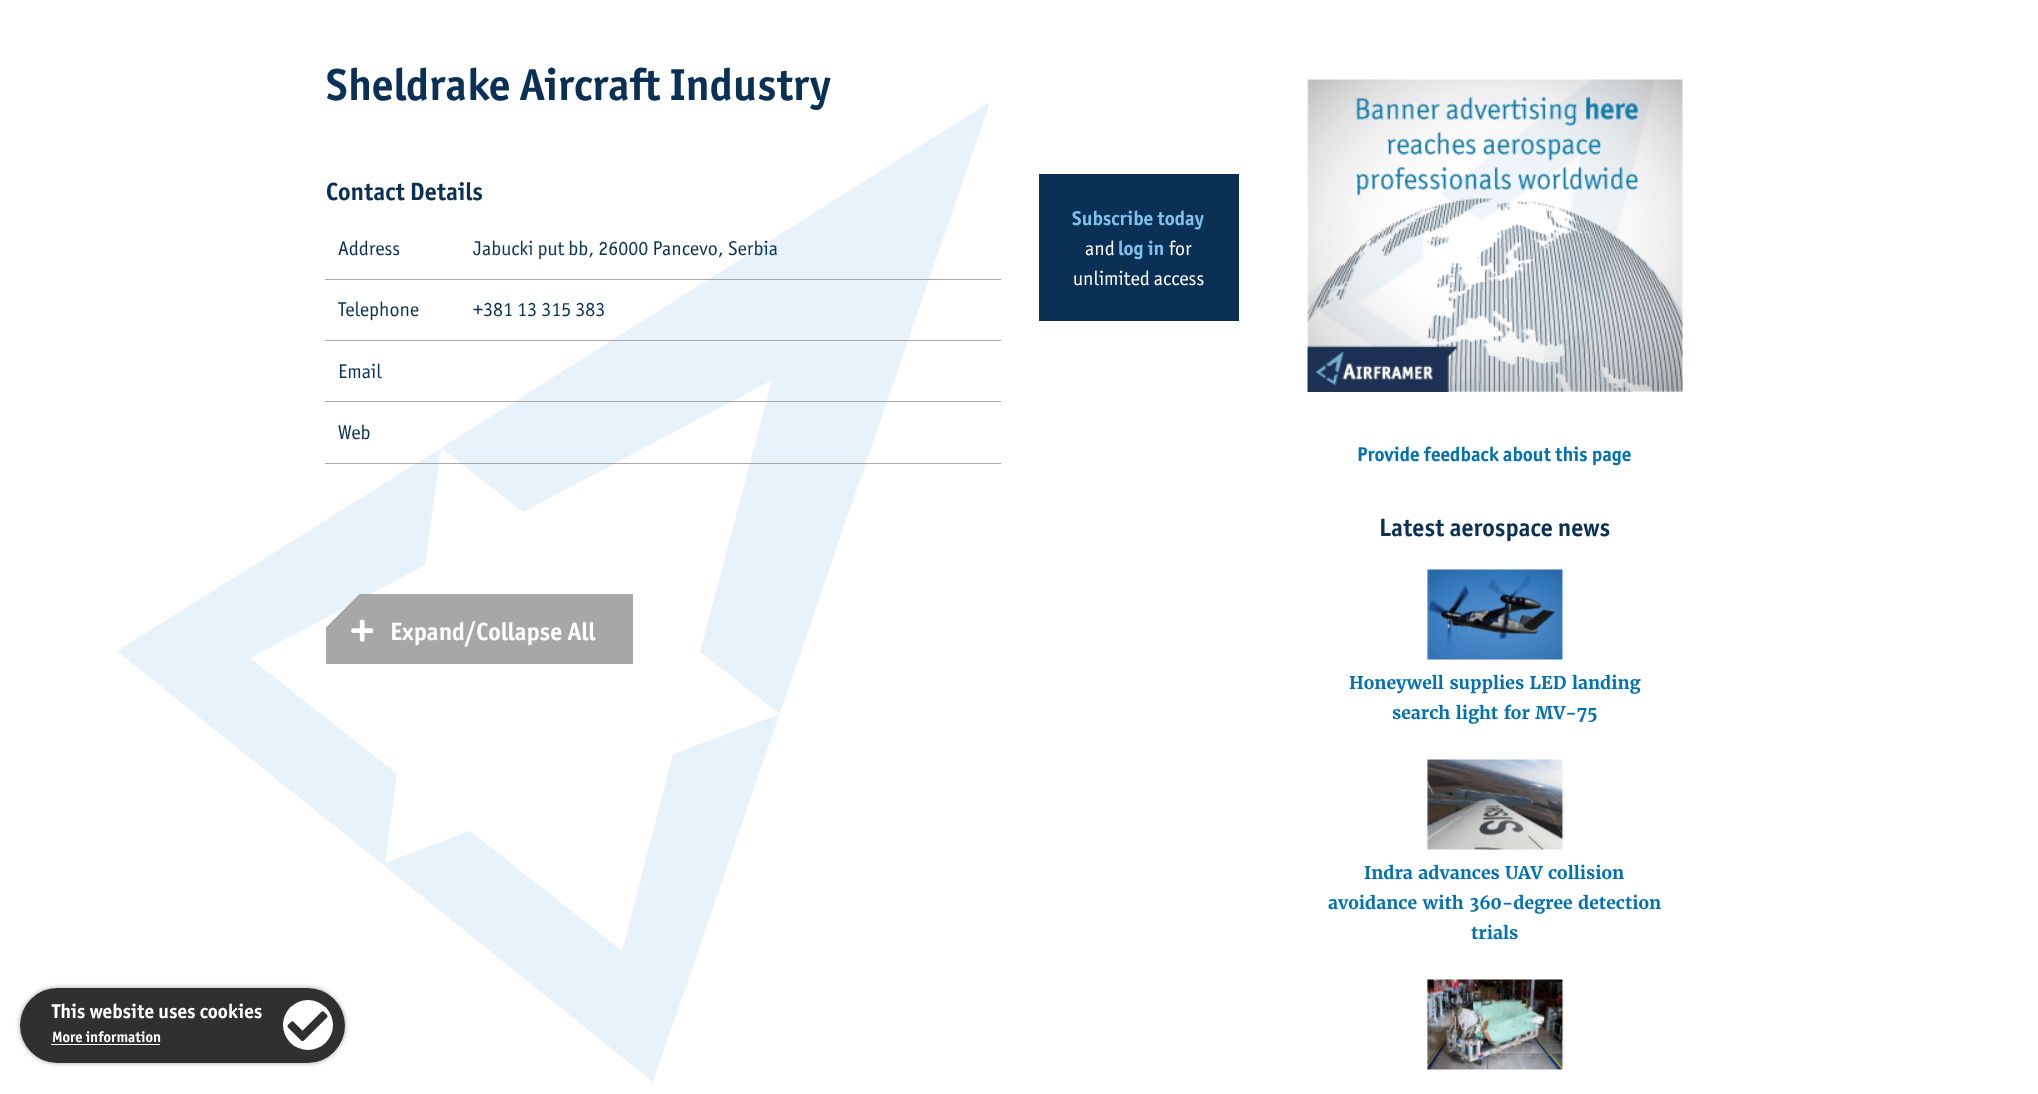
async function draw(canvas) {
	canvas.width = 2038;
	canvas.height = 1094;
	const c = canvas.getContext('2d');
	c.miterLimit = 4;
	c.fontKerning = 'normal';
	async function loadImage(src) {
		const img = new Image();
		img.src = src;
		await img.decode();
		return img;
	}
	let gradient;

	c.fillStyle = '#fff';
	c.fillRect(0, 0, 2038, 1094);
	c.fillStyle = '#e7f2fb';
	c.beginPath();
	c.moveTo(441, 448);
	c.lineTo(523, 512);
	c.lineTo(772, 380);
	c.lineTo(700, 652);
	c.lineTo(780, 714);
	c.lineTo(673, 754);
	c.lineTo(622, 951);
	c.lineTo(470, 831);
	c.lineTo(385, 863);
	c.lineTo(397, 774);
	c.lineTo(250, 658);
	c.lineTo(425, 565);
	c.lineTo(441, 448);
	c.lineTo(117, 651);
	c.lineTo(653, 1082);
	c.lineTo(990, 102);
	c.closePath();
	c.fill();
	c.font = 'bold 45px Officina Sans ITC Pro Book';
	c.fillStyle = '#0a3155';
	c.fillText('Sheldrake Aircraft Industry', 326, 100);
	c.font = 'bold 25px Officina Sans ITC Pro Book';
	c.fillText('Contact Details', 326, 200);
	c.fillStyle = '#a7a7a7';
	c.fillRect(325, 279, 676, 1);
	c.font = '20px Officina Sans ITC Pro Book';
	c.fillStyle = '#0a3155';
	c.fillText('Address', 338, 255);
	c.fillText('Jabucki put bb, 26000 Pancevo, Serbia', 473, 255);
	c.fillStyle = '#a7a7a7';
	c.fillRect(325, 340, 676, 1);
	c.fillStyle = '#0a3155';
	c.fillText('Telephone', 338, 316);
	c.fillText('+381 13 315 383', 473, 316);
	c.fillStyle = '#a7a7a7';
	c.fillRect(325, 401, 676, 1);
	c.fillStyle = '#0a3155';
	c.fillText('Email', 338, 378);
	c.fillStyle = '#a7a7a7';
	c.fillRect(325, 463, 676, 1);
	c.fillStyle = '#0a3155';
	c.fillText('Web', 338, 439);
	c.fillRect(1039, 174, 200, 147);
	c.font = 'bold 20px Officina Sans ITC Pro Book';
	c.fillStyle = '#82c1eb';
	c.fillText('Subscribe today', 1072, 225);
	c.font = '20px Officina Sans ITC Pro Book';
	c.fillStyle = '#fff';
	c.fillText('and', 1085, 255);
	c.font = 'bold 20px Officina Sans ITC Pro Book';
	c.fillStyle = '#82c1eb';
	c.fillText('log in', 1118, 255);
	c.font = '20px Officina Sans ITC Pro Book';
	c.fillStyle = '#fff';
	c.fillText('for', 1169, 255);
	c.fillText('unlimited access', 1073, 285);
	gradient = c.createLinearGradient(385, 535, 573, 723);
	gradient.addColorStop(0.09, '#a7a7a700');
	gradient.addColorStop(0.09, '#a7a7a7');
	c.fillStyle = gradient;
	c.fillRect(326, 594, 307, 70);
	c.drawImage(await loadImage('img1.png'), 351, 619, 23, 23);
	c.font = 'bold 25px Officina Sans ITC Pro Book';
	c.fillStyle = '#fff';
	c.fillText('Expand/Collapse All', 390, 640);
	c.drawImage(await loadImage('img2.png'), 1307, 79, 376, 313);
	c.font = 'bold 20px Officina Sans ITC Pro Book';
	c.fillStyle = '#0071b4';
	c.fillText('Provide feedback about this page', 1357, 461);
	c.font = 'bold 25px Officina Sans ITC Pro Book';
	c.fillStyle = '#0a3155';
	c.fillText('Latest aerospace news', 1379, 536);
	c.drawImage(await loadImage('img3.png'), 1427, 569, 137, 91);
	c.font = 'bold 17.5px Merriweather';
	c.fillStyle = '#0071b4';
	c.fillText('Honeywell supplies LED landing', 1349, 689);
	c.fillText('search light for MV-75', 1392, 719);
	c.drawImage(await loadImage('img4.png'), 1427, 759, 137, 91);
	for (const [text, x, y] of [
		['Indra advances UAV collision', 1364, 879],
		['avoidance with 360-degree detection', 1328, 909],
		['trials', 1471, 939],
	]) {
		c.fillText(text, x, y);
	}
	c.drawImage(await loadImage('img5.png'), 1427, 979, 137, 91);
	c.fillStyle = '#9f9f9f';
	c.filter = 'blur(2.5px)';
	c.beginPath();
	c.roundRect(20, 988, 325, 75, 37.5);
	c.fill();
	c.filter = 'none';
	c.fillStyle = '#303030';
	c.beginPath();
	c.roundRect(20, 988, 325, 75, 37.5);
	c.fill();
	c.font = 'bold 20px Officina Sans ITC Pro Book';
	c.fillStyle = '#fff';
	c.fillText('This website uses cookies', 52, 1018);
	c.font = 'bold 15px Officina Sans ITC Pro Book';
	c.fillText('More information', 52, 1042);
	c.fillRect(51, 1044, 109, 1);
	c.beginPath();
	c.arc(308, 1025, 25, 0, 2 * Math.PI);
	c.fill();
	c.drawImage(await loadImage('img6.png'), 287, 1011, 41, 31);
}

draw(document.querySelector('canvas'));
